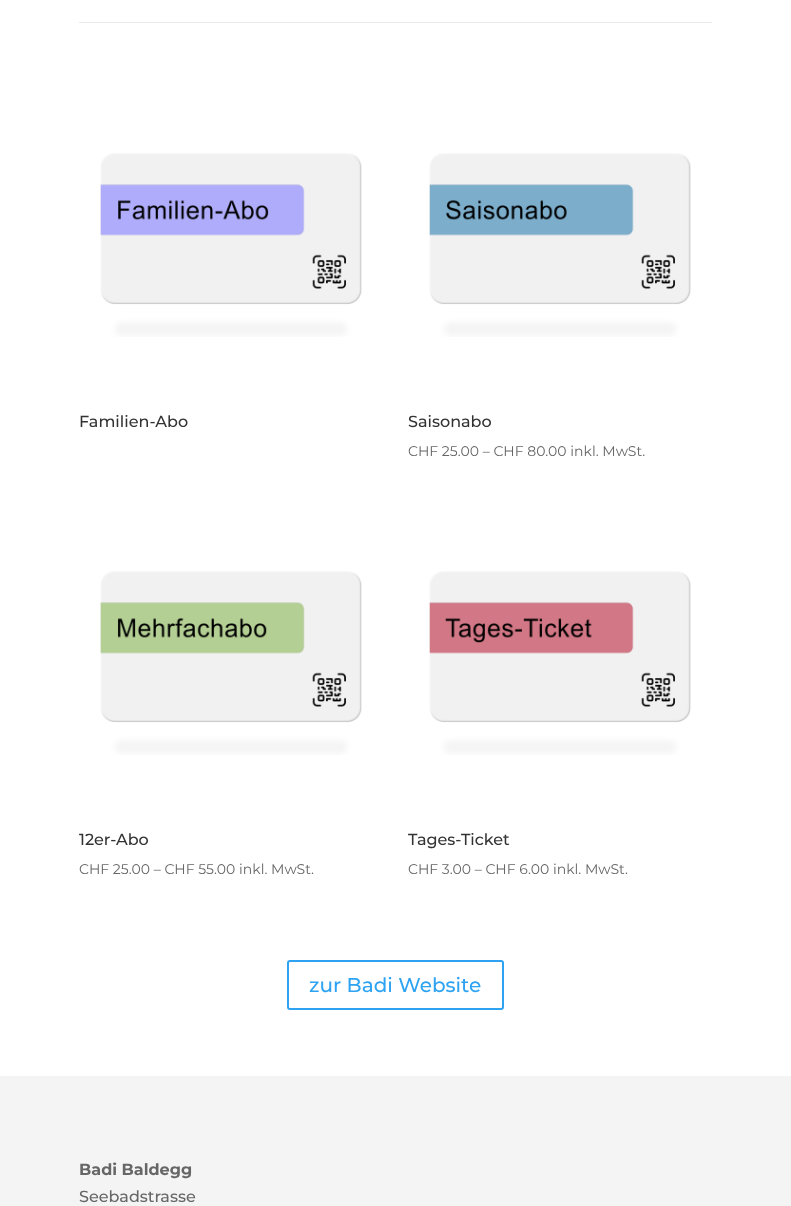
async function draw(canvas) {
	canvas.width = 791;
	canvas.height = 1206;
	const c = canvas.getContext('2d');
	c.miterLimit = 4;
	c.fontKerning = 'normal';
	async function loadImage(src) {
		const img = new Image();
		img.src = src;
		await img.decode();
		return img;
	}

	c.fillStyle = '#fff';
	c.fillRect(0, 0, 791, 1206);
	c.fillStyle = '#ebe8e7';
	c.fillRect(79, 22, 633, 1);
	c.drawImage(await loadImage('img1.png'), 100, 153, 262, 184);
	c.font = '500 16px Montserrat';
	c.fillStyle = '#333';
	c.fillText('Familien-Abo', 79, 427);
	c.drawImage(await loadImage('img2.png'), 429, 153, 262, 184);
	c.fillText('Saisonabo', 408, 427);
	c.font = '14px Montserrat';
	c.fillStyle = '#666';
	c.fillText('CHF 25.00 – CHF 80.00 inkl. MwSt.', 408, 456);
	c.drawImage(await loadImage('img3.png'), 100, 571, 262, 184);
	c.font = '500 16px Montserrat';
	c.fillStyle = '#333';
	c.fillText('12er-Abo', 79, 845);
	c.font = '14px Montserrat';
	c.fillStyle = '#666';
	c.fillText('CHF 25.00 – CHF 55.00 inkl. MwSt.', 79, 874);
	c.drawImage(await loadImage('img4.png'), 429, 571, 262, 184);
	c.font = '500 16px Montserrat';
	c.fillStyle = '#333';
	c.fillText('Tages-Ticket', 408, 845);
	c.font = '14px Montserrat';
	c.fillStyle = '#666';
	c.fillText('CHF 3.00 – CHF 6.00 inkl. MwSt.', 408, 874);
	c.beginPath();
	c.roundRect(288, 961, 215, 48, 2);
	c.strokeStyle = '#2ea3f2';
	c.lineWidth = 2;
	c.stroke();
	c.font = '500 20px Montserrat';
	c.fillStyle = '#2ea3f2';
	c.fillText('zur Badi Website', 309, 992);
	c.fillStyle = '#f4f4f4';
	c.fillRect(0, 1076, 791, 130);
	c.font = 'bold 16px Montserrat';
	c.fillStyle = '#666';
	c.fillText('Badi Baldegg', 79, 1175);
	c.font = '500 16px Montserrat';
	c.fillText('Seebadstrasse', 79, 1202);
}

draw(document.querySelector('canvas'));
